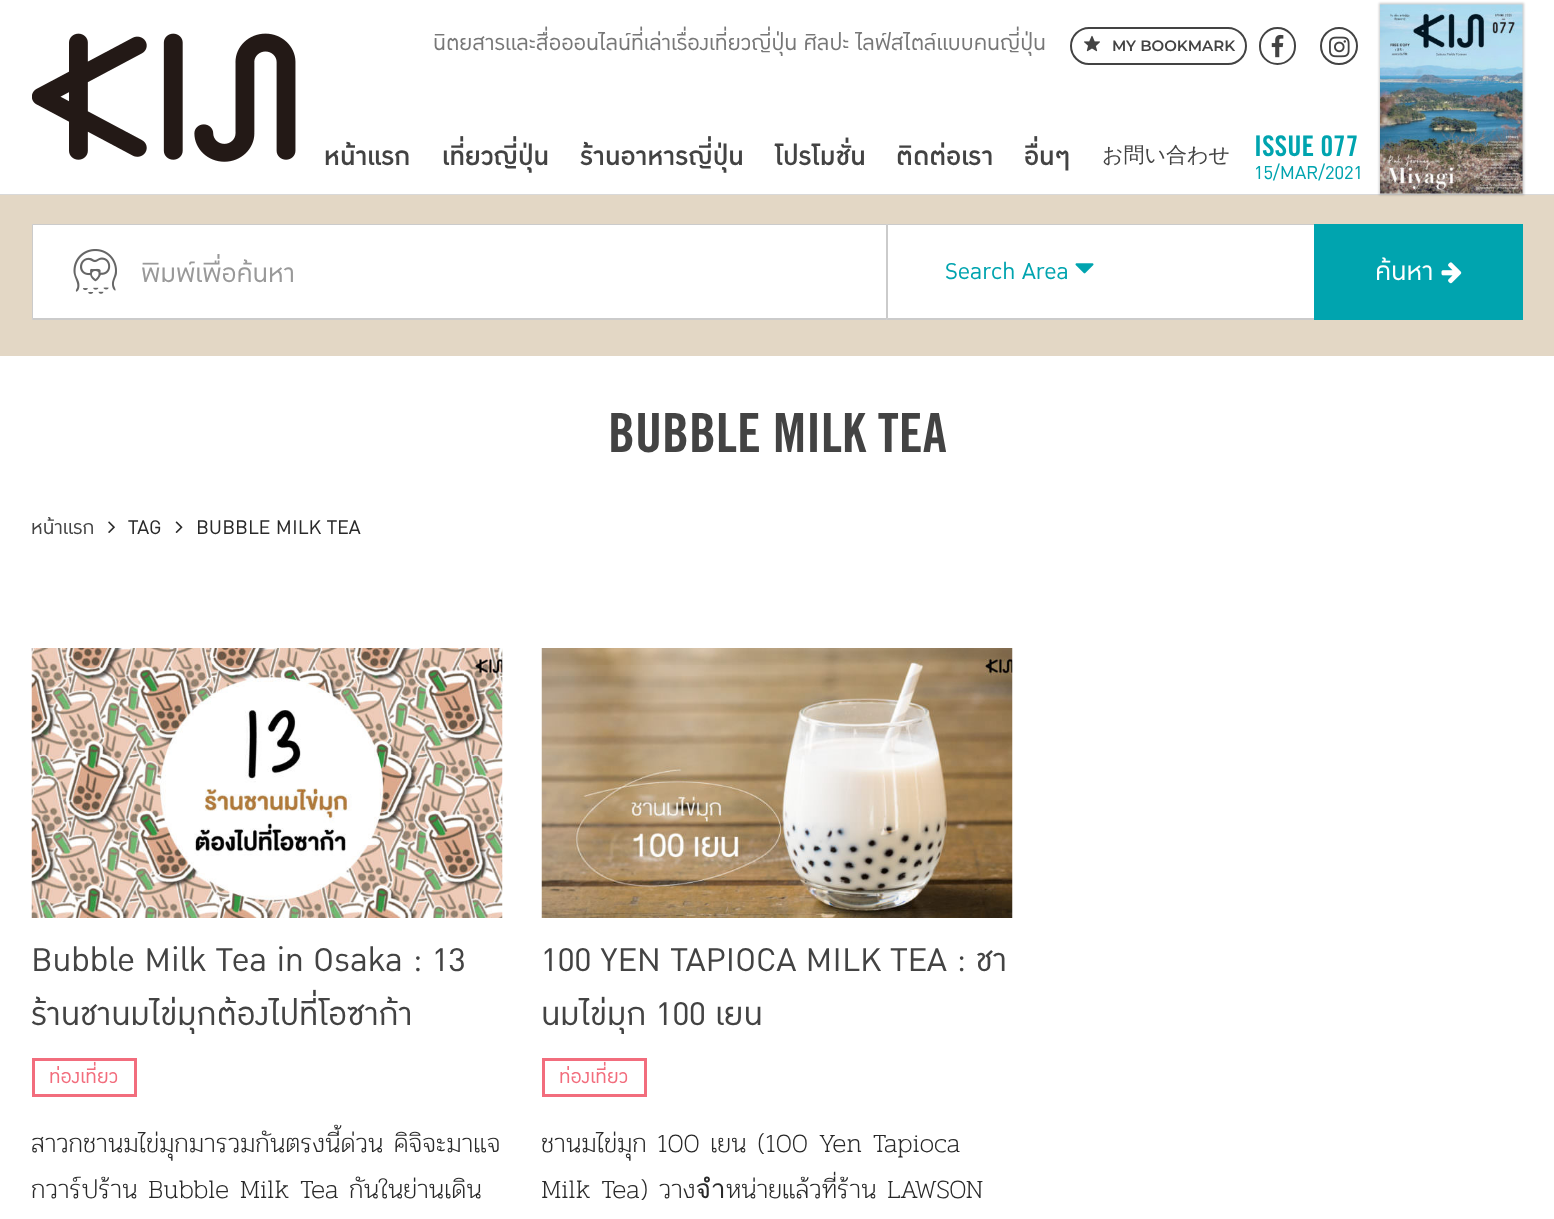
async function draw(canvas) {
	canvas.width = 1554;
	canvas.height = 1219;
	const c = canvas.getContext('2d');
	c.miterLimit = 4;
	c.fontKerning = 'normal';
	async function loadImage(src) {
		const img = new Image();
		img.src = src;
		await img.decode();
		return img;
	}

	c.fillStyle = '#fff';
	c.fillRect(0, 0, 1554, 1219);
	c.drawImage(await loadImage('img1.png'), 32, 33, 264, 129);
	c.font = '30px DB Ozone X';
	c.fillStyle = '#777';
	c.fillText('นิตยสารและสื่อออนไลน์ที่เล่าเรื่องเที่ยวญี่ปุ่น ศิลปะ ไลฟ์สไตล์แบบคนญี่ปุ่น', 433, 50);
	c.beginPath();
	c.roundRect(1071, 28, 175, 36, 18);
	c.strokeStyle = '#434343';
	c.lineWidth = 2;
	c.stroke();
	c.drawImage(await loadImage('img2.png'), 1084, 35, 16, 17);
	c.font = '100 15px Montserrat';
	c.fillStyle = '#434343';
	c.fillText('MY BOOKMARK', 1112, 51);
	c.beginPath();
	c.roundRect(1260, 28, 35, 36, 17.5);
	c.stroke();
	c.drawImage(await loadImage('img3.png'), 1271, 34, 13, 24);
	c.beginPath();
	c.arc(1339, 46, 18, 0, 2 * Math.PI);
	c.stroke();
	c.drawImage(await loadImage('img4.png'), 1329, 36, 21, 22);
	c.fillStyle = '#d9d9d9';
	c.fillRect(0, 194, 1554, 1);
	c.font = '500 36px DB Ozone X';
	c.fillStyle = '#434343';
	for (const [text, x, y] of [
		['หน้าแรก', 324, 165],
		['เที่ยวญี่ปุ่น', 442, 165],
		['ร้านอาหารญี่ปุ่น', 580, 165],
		['โปรโมชั่น', 775, 165],
		['ติดต่อเรา', 896, 165],
		['อื่นๆ', 1024, 165],
	]) {
		c.fillText(text, x, y);
	}
	c.font = '500 21px WenQuanYi Zen Hei';
	c.fillText('お問い合わせ', 1102, 162);
	c.font = 'bold 28.5px "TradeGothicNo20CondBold"';
	c.fillStyle = '#00a4af';
	c.fillText('ISSUE 077', 1254, 156);
	c.font = '25.5px DB Ozone X';
	c.fillText('15/MAR/2021', 1254, 179);
	c.fillStyle = '#e3d7c5';
	c.fillRect(0, 195, 1554, 161);
	c.fillStyle = '#00000033';
	c.filter = 'blur(1px)';
	c.beginPath();
	c.rect(1379, 3, 145, 192);
	c.fill();
	c.filter = 'none';
	c.drawImage(await loadImage('img5.png'), 1380, 4, 143, 190);
	c.fillStyle = '#fff';
	c.fillRect(32, 224, 855, 96);
	c.drawImage(await loadImage('img6.png'), 73, 249, 44, 45);
	c.fillStyle = '#cbcbcb';
	c.beginPath();
	c.moveTo(32, 224);
	c.lineTo(886, 224);
	c.lineTo(886, 225);
	c.lineTo(33, 225);
	c.closePath();
	c.fill();
	c.beginPath();
	c.moveTo(886, 320);
	c.lineTo(32, 320);
	c.lineTo(33, 318);
	c.lineTo(886, 318);
	c.closePath();
	c.fill();
	c.fillStyle = '#97979780';
	c.beginPath();
	c.moveTo(32, 320);
	c.lineTo(32, 224);
	c.lineTo(33, 225);
	c.lineTo(33, 318);
	c.closePath();
	c.fill();
	c.save();
	c.beginPath();
	c.rect(141, 254, 686, 40);
	c.clip();
	c.font = '36px DB Ozone X';
	c.fillStyle = '#999';
	c.fillText('พิมพ์เพื่อค้นหา', 141, 282);
	c.restore();
	c.fillStyle = '#fff';
	c.fillRect(887, 224, 427, 95);
	c.fillStyle = '#cbcbcb';
	c.beginPath();
	c.moveTo(886, 224);
	c.lineTo(1314, 224);
	c.lineTo(1314, 225);
	c.lineTo(888, 225);
	c.closePath();
	c.fill();
	c.beginPath();
	c.moveTo(1314, 320);
	c.lineTo(886, 320);
	c.lineTo(888, 318);
	c.lineTo(1314, 318);
	c.closePath();
	c.fill();
	c.fillStyle = '#97979780';
	c.beginPath();
	c.moveTo(886, 320);
	c.lineTo(886, 224);
	c.lineTo(888, 225);
	c.lineTo(888, 318);
	c.closePath();
	c.fill();
	c.font = '31.5px DB Ozone X';
	c.fillStyle = '#00a4af';
	c.fillText('Search Area', 945, 279);
	c.drawImage(await loadImage('img7.png'), 1075, 263, 19, 11);
	c.fillRect(1314, 224, 209, 96);
	c.font = '36px DB Ozone X';
	c.fillStyle = '#fff';
	c.fillText('ค้นหา', 1375, 280);
	c.drawImage(await loadImage('img8.png'), 1441, 262, 21, 22);
	c.font = 'bold 54px "TradeGothicNo20CondBold"';
	c.fillStyle = '#434343';
	c.fillText('BUBBLE MILK TEA', 608, 452);
	c.font = '27px DB Ozone X';
	c.fillText('หน้าแรก', 31, 534);
	c.drawImage(await loadImage('img9.png'), 108, 521, 7, 12);
	c.fillStyle = '#292929';
	c.fillText('TAG', 128, 534);
	c.drawImage(await loadImage('img10.png'), 175, 521, 8, 12);
	c.fillText('BUBBLE MILK TEA', 196, 534);
	c.drawImage(await loadImage('img11.png'), 31, 648, 472, 270);
	c.font = '45px DB Ozone X';
	c.fillStyle = '#434343';
	c.fillText('Bubble Milk Tea in Osaka : 13', 31, 971);
	c.fillText('ร้านชานมไข่มุกต้องไปที่โอซาก้า', 31, 1025);
	c.strokeStyle = '#f26d7d';
	c.lineWidth = 3;
	c.strokeRect(33.5, 1059.5, 102, 36);
	c.font = '27px DB Ozone X';
	c.fillStyle = '#f26d7d';
	c.fillText('ท่องเที่ยว', 49, 1083);
	c.font = '200 26.4px Pridi';
	c.fillStyle = '#292929';
	c.fillText('สาวกชานมไข่มุกมารวมกันตรงนี้ด่วน คิจิจะมาแจ', 31, 1152);
	c.fillText('กวาร์ปร้าน Bubble Milk Tea กันในย่านเดิน', 31, 1198);
	c.drawImage(await loadImage('img12.png'), 541, 648, 472, 270);
	c.font = '45px DB Ozone X';
	c.fillStyle = '#434343';
	c.fillText('100 YEN TAPIOCA MILK TEA : ชา', 541, 971);
	c.fillText('นมไข่มุก 100 เยน', 541, 1025);
	c.strokeRect(543.5, 1059.5, 102, 36);
	c.font = '27px DB Ozone X';
	c.fillStyle = '#f26d7d';
	c.fillText('ท่องเที่ยว', 559, 1083);
	c.font = '200 26.4px Pridi';
	c.fillStyle = '#292929';
	c.fillText('ชานมไข่มุก 100 เยน (100 Yen Tapioca', 541, 1152);
	c.fillText('Milk Tea) วางจำหน่ายแล้วที่ร้าน LAWSON', 541, 1198);
}

draw(document.querySelector('canvas'));
